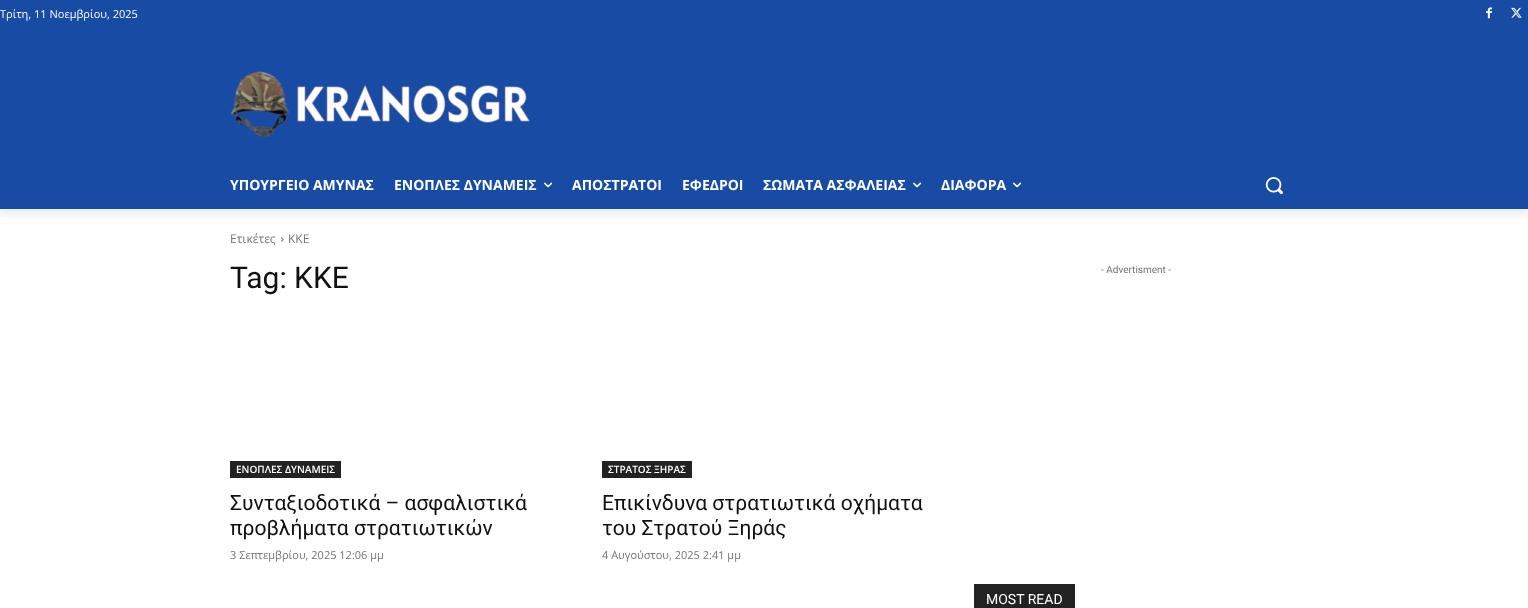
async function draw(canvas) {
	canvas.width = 1528;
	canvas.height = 608;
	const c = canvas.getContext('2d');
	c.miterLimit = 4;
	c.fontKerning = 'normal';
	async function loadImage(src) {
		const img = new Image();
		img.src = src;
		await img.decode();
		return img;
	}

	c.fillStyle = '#fff';
	c.fillRect(0, 0, 1528, 608);
	c.fillStyle = '#184ba3';
	c.fillRect(0, 0, 1528, 209);
	c.drawImage(await loadImage('img1.png'), 1486, 7, 6, 12);
	c.drawImage(await loadImage('img2.png'), 1511, 7, 11, 11);
	c.drawImage(await loadImage('img3.png'), 230, 71, 300, 67);
	c.save();
	c.beginPath();
	c.rect(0, 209, 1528, 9);
	c.clip();
	c.fillStyle = '#00000014';
	c.filter = 'blur(4px)';
	c.beginPath();
	c.rect(0, 6, 1528, 209);
	c.fill();
	c.filter = 'none';
	c.restore();
	c.font = '11px Open Sans';
	c.fillStyle = '#fff';
	c.fillText('Τρίτη, 11 Νοεμβρίου, 2025', 0, 18);
	c.font = 'bold 14px Open Sans';
	c.fillText('ΥΠΟΥΡΓΕΙΟ ΑΜΥΝΑΣ', 230, 190);
	c.fillText('ΕΝΟΠΛΕΣ ΔΥΝΑΜΕΙΣ', 394, 190);
	c.drawImage(await loadImage('img4.png'), 544, 182, 9, 6);
	for (const [text, x, y] of [
		['ΑΠΟΣΤΡΑΤΟΙ', 572, 190],
		['ΕΦΕΔΡΟΙ', 682, 190],
		['ΣΩΜΑΤΑ ΑΣΦΑΛΕΙΑΣ', 763, 190],
	]) {
		c.fillText(text, x, y);
	}
	c.drawImage(await loadImage('img4.png'), 913, 182, 9, 6);
	c.fillText('ΔΙΑΦΟΡΑ', 941, 190);
	c.drawImage(await loadImage('img4.png'), 1013, 182, 9, 6);
	c.drawImage(await loadImage('img5.png'), 1265, 177, 18, 18);
	c.font = '12px Open Sans';
	c.fillStyle = '#747474';
	c.fillText('Ετικέτες', 230, 243);
	c.drawImage(await loadImage('img6.png'), 281, 237, 3, 5);
	c.fillText('ΚΚΕ', 288, 243);
	c.font = '30px Roboto';
	c.fillStyle = '#111';
	c.fillText('Tag: ΚΚΕ', 230, 288);
	c.fillStyle = '#222';
	c.fillRect(230, 461, 111, 17);
	c.font = '600 10px Open Sans';
	c.fillStyle = '#fff';
	c.fillText('ΕΝΟΠΛΕΣ ΔΥΝΑΜΕΙΣ', 236, 473);
	c.font = '21px Roboto';
	c.fillStyle = '#111';
	c.fillText('Συνταξιοδοτικά – ασφαλιστικά', 230, 510);
	c.fillText('προβλήματα στρατιωτικών', 230, 535);
	c.font = '11px Open Sans';
	c.fillStyle = '#747474';
	c.fillText('3 Σεπτεμβρίου, 2025 12:06 μμ', 230, 559);
	c.fillStyle = '#222';
	c.fillRect(602, 461, 90, 17);
	c.font = '600 10px Open Sans';
	c.fillStyle = '#fff';
	c.fillText('ΣΤΡΑΤΟΣ ΞΗΡΑΣ', 608, 473);
	c.font = '21px Roboto';
	c.fillStyle = '#111';
	c.fillText('Επικίνδυνα στρατιωτικά οχήματα', 602, 510);
	c.fillText('του Στρατού Ξηράς', 602, 535);
	c.font = '11px Open Sans';
	c.fillStyle = '#747474';
	c.fillText('4 Αυγούστου, 2025 2:41 μμ', 602, 559);
	c.font = '10px Roboto';
	c.fillText('- Advertisment -', 1101, 273);
	c.fillStyle = '#222';
	c.fillRect(974, 584, 101, 24);
	c.font = '14px Roboto';
	c.fillStyle = '#fff';
	c.fillText('MOST READ', 986, 604);
}

draw(document.querySelector('canvas'));
